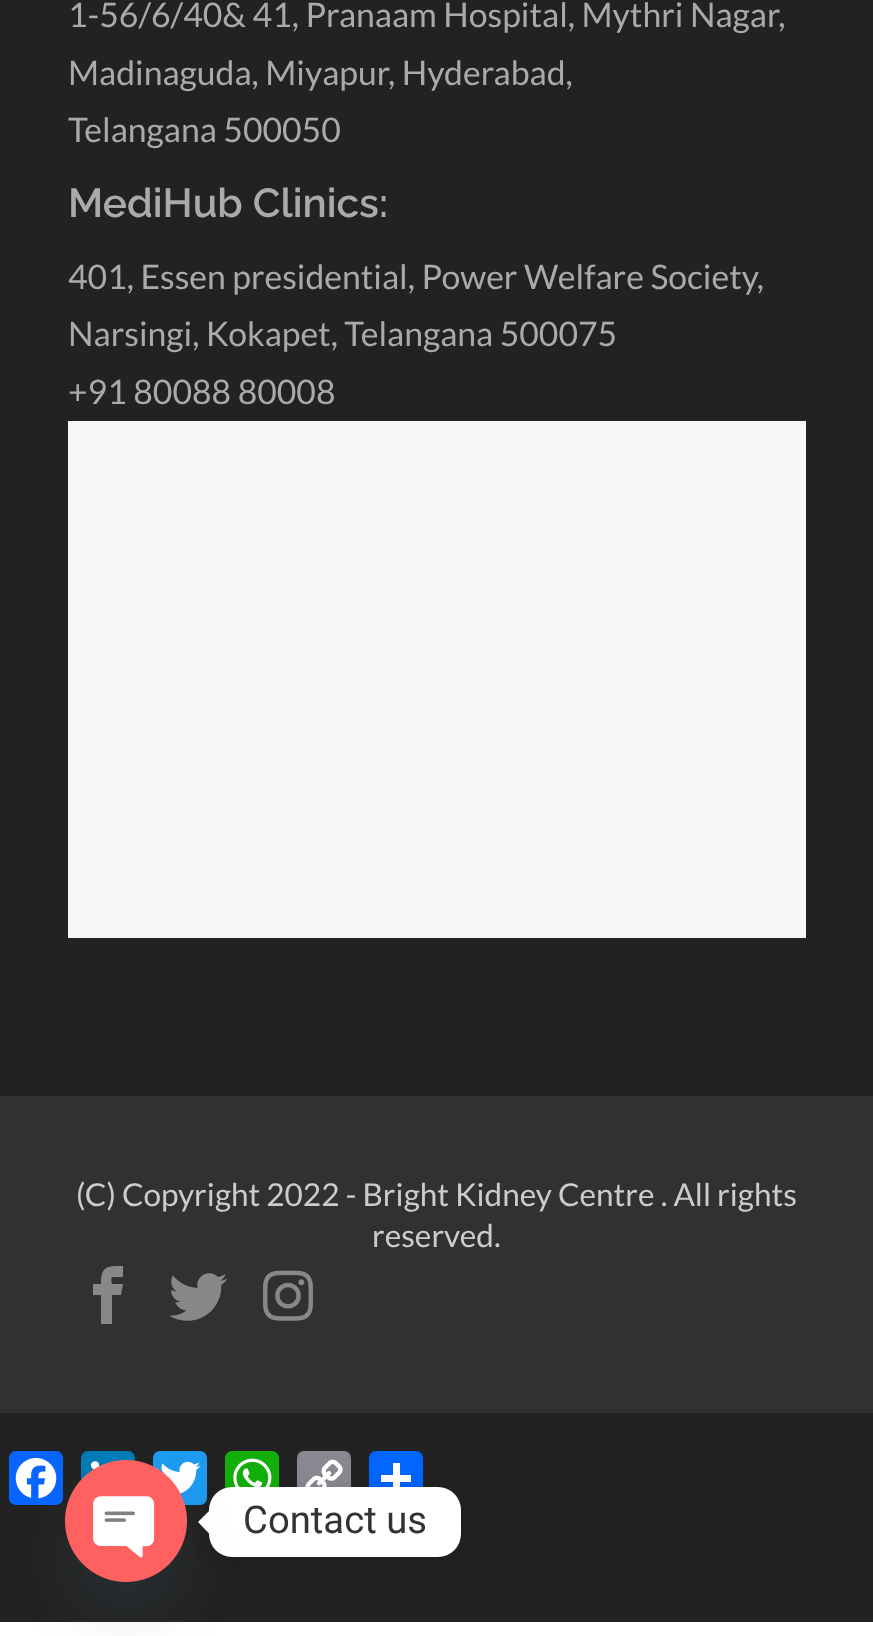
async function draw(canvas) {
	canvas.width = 873;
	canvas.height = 1636;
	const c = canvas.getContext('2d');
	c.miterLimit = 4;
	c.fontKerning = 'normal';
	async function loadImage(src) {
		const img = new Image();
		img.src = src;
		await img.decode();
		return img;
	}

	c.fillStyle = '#fff';
	c.fillRect(0, 0, 873, 1636);
	c.fillStyle = '#222';
	c.fillRect(0, 0, 873, 1622);
	c.font = '33.75px Lato';
	c.fillStyle = '#aaa';
	for (const [text, x, y] of [
		['1-56/6/40& 41, Pranaam Hospital, Mythri Nagar,', 68, 27],
		['Madinaguda, Miyapur, Hyderabad,', 68, 85],
		['Telangana 500050', 68, 142],
	]) {
		c.fillText(text, x, y);
	}
	c.font = '600 40.5px Raleway';
	c.fillText('MediHub Clinics:', 68, 217);
	c.font = '33.75px Lato';
	for (const [text, x, y] of [
		['401, Essen presidential, Power Welfare Society,', 68, 289],
		['Narsingi, Kokapet, Telangana 500075', 68, 346],
		['+91 80088 80008', 68, 404],
	]) {
		c.fillText(text, x, y);
	}
	c.fillStyle = '#f7f7f7';
	c.fillRect(68, 421, 738, 517);
	c.fillStyle = '#313131';
	c.fillRect(0, 1096, 873, 317);
	c.font = '31.5px Lato';
	c.fillStyle = '#ccc';
	c.fillText('(C) Copyright 2022 - Bright Kidney Centre . All rights', 76, 1206);
	c.fillText('reserved.', 372, 1247);
	c.fillStyle = '#888';
	c.beginPath();
	c.moveTo(113, 1277);
	c.lineTo(123, 1277);
	c.lineTo(123, 1266);
	c.bezierCurveTo(107, 1266, 101, 1266, 101, 1284);
	c.lineTo(93, 1284);
	c.lineTo(93, 1295);
	c.lineTo(101, 1295);
	c.lineTo(101, 1324);
	c.lineTo(112, 1324);
	c.lineTo(112, 1295);
	c.lineTo(121, 1295);
	c.lineTo(123, 1284);
	c.lineTo(112, 1284);
	c.bezierCurveTo(112, 1283, 110, 1277, 113, 1277);
	c.closePath();
	c.fill();
	c.drawImage(await loadImage('img1.png'), 169, 1273, 58, 48);
	c.drawImage(await loadImage('img2.png'), 262, 1270, 52, 51);
	c.fillStyle = '#0866ff';
	c.beginPath();
	c.roundRect(9, 1451, 54, 54, 7);
	c.fill();
	c.drawImage(await loadImage('img3.png'), 15, 1458, 42, 41);
	c.fillStyle = '#007bb5';
	c.beginPath();
	c.roundRect(81, 1451, 54, 54, 7);
	c.fill();
	c.drawImage(await loadImage('img4.png'), 90, 1461, 10, 9);
	c.fillStyle = '#1d9bf0';
	c.beginPath();
	c.roundRect(153, 1451, 54, 54, 7);
	c.fill();
	c.drawImage(await loadImage('img5.png'), 161, 1461, 40, 33);
	c.fillStyle = '#12af0a';
	c.beginPath();
	c.roundRect(225, 1451, 54, 54, 7);
	c.fill();
	c.drawImage(await loadImage('img6.png'), 233, 1458, 39, 29);
	c.fillStyle = '#888990';
	c.beginPath();
	c.roundRect(297, 1451, 54, 54, 7);
	c.fill();
	c.drawImage(await loadImage('img7.png'), 305, 1459, 38, 28);
	c.fillStyle = '#0166ff';
	c.beginPath();
	c.roundRect(369, 1451, 54, 54, 7);
	c.fill();
	c.fillStyle = '#fff';
	c.fillRect(393, 1463, 7, 31);
	c.fillRect(381, 1475, 30, 7);
	c.fillStyle = '#00000026';
	c.filter = 'blur(8.5px)';
	c.beginPath();
	c.roundRect(209, 1490, 252, 69, 23);
	c.fill();
	c.filter = 'none';
	c.fillStyle = '#fff';
	c.beginPath();
	c.roundRect(209, 1487, 252, 70, 23);
	c.fill();
	c.beginPath();
	c.moveTo(209, 1511);
	c.lineTo(209, 1533.5);
	c.lineTo(198, 1522);
	c.closePath();
	c.fill();
	c.fillStyle = '#49687e29';
	c.filter = 'blur(27px)';
	c.beginPath();
	c.roundRect(65, 1496, 122, 122, 61);
	c.fill();
	c.filter = 'none';
	c.drawImage(await loadImage('img8.png'), 65, 1460, 122, 122);
	c.font = '38.25px Roboto';
	c.fillStyle = '#333';
	c.fillText('Contact us', 243, 1533);
}

draw(document.querySelector('canvas'));
